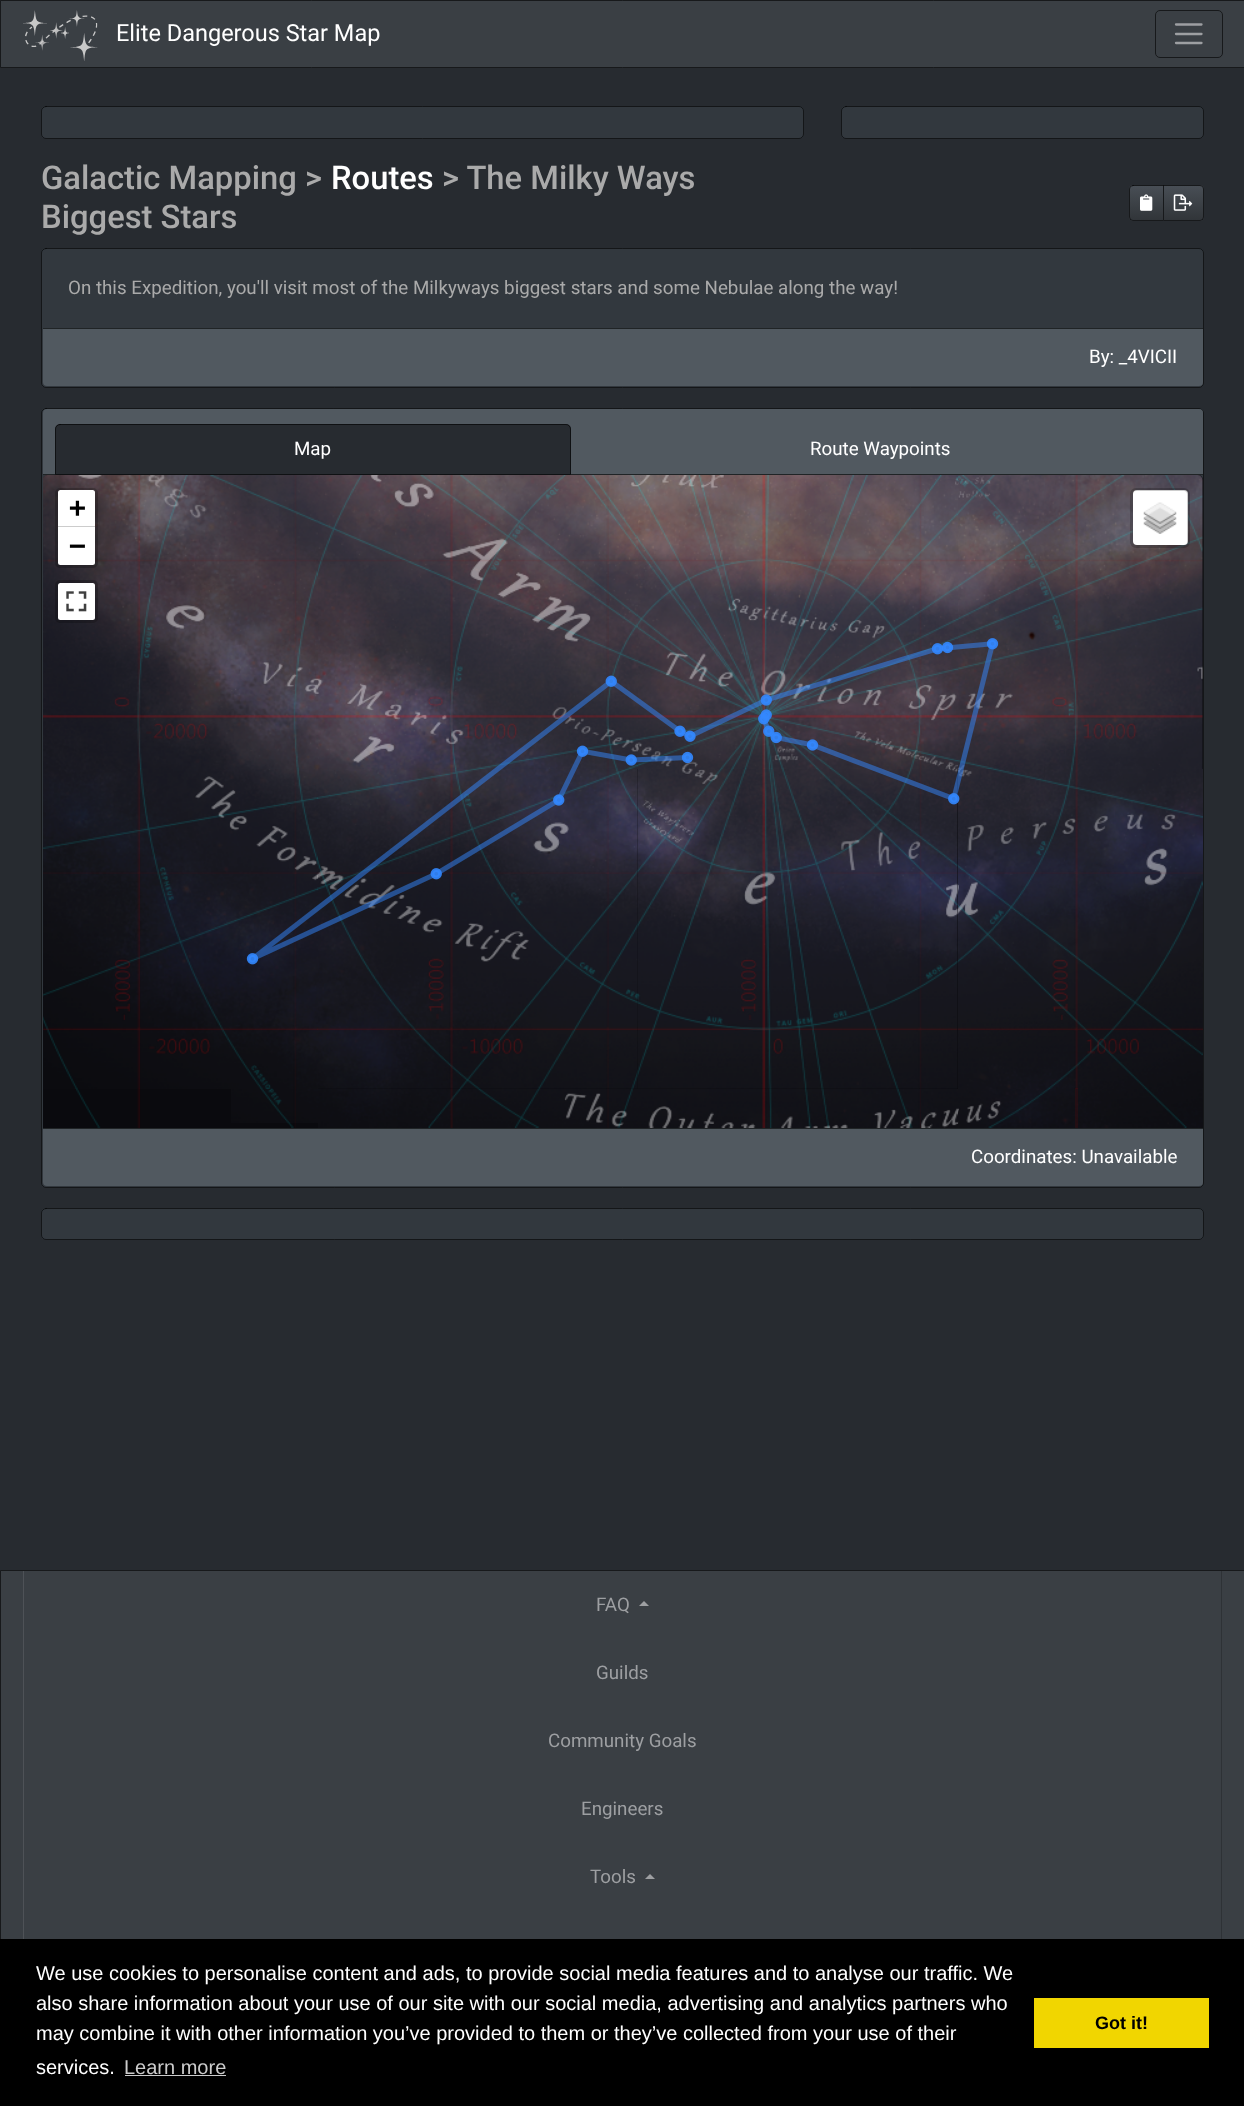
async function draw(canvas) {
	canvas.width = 1244;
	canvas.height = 2106;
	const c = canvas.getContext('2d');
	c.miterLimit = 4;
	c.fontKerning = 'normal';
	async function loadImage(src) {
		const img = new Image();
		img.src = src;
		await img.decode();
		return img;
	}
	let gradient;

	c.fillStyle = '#272b30';
	c.fillRect(0, 0, 1244, 2106);
	c.fillStyle = '#3a3f44';
	c.beginPath();
	c.rect(0.5, 0.5, 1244, 67);
	c.fill();
	c.strokeStyle = '#17191b';
	c.stroke();
	c.drawImage(await loadImage('img1.png'), 23, 10, 75, 51);
	c.font = '23.5px Roboto';
	c.fillStyle = '#fff';
	c.fillText('Elite Dangerous Star Map', 116, 41);
	c.beginPath();
	c.roundRect(1155.5, 10.5, 67, 47, 4.5);
	c.stroke();
	c.beginPath();
	c.moveTo(1176, 24.5);
	c.lineTo(1201.5, 24.5);
	c.moveTo(1176, 34);
	c.lineTo(1201.5, 34);
	c.moveTo(1176, 43);
	c.lineTo(1201.5, 43);
	c.strokeStyle = '#9d9fa2';
	c.lineWidth = 2.3;
	c.lineCap = 'round';
	c.stroke();
	c.fillStyle = '#32383e';
	c.beginPath();
	c.roundRect(41, 106, 763, 33, 5);
	c.fill();
	c.beginPath();
	c.roundRect(41.5, 106.5, 762, 32, 4.5);
	c.strokeStyle = '#00000099';
	c.lineWidth = 1;
	c.stroke();
	c.beginPath();
	c.roundRect(841, 106, 363, 33, 5);
	c.fill();
	c.beginPath();
	c.roundRect(841.5, 106.5, 362, 32, 4.5);
	c.stroke();
	c.font = '500 32.75px Roboto';
	c.fillStyle = '#aaa';
	c.fillText('Galactic Mapping >', 41, 189);
	c.fillStyle = '#fff';
	c.fillText('Routes', 331, 189);
	c.fillStyle = '#aaa';
	c.fillText('> The Milky Ways', 442, 189);
	c.fillText('Biggest Stars', 41, 228);
	c.fillStyle = '#3a3f44';
	c.beginPath();
	c.roundRect(1129, 185, 35, 36, [4, 0, 0, 4]);
	c.fill();
	gradient = c.createLinearGradient(1146, 186, 1146, 220);
	gradient.addColorStop(0, '#484e55');
	gradient.addColorStop(0.6, '#3a3f44');
	gradient.addColorStop(1, '#313539');
	c.fillStyle = gradient;
	c.fillRect(1130, 186, 33, 34);
	c.beginPath();
	c.roundRect(1129.5, 185.5, 34, 35, [3.5, 0, 0, 3.5]);
	c.stroke();
	c.drawImage(await loadImage('img2.png'), 1140, 194, 13, 17);
	c.fillStyle = '#3a3f44';
	c.beginPath();
	c.roundRect(1163, 185, 41, 36, [0, 4, 4, 0]);
	c.fill();
	gradient = c.createLinearGradient(1183, 186, 1183, 220);
	gradient.addColorStop(0, '#484e55');
	gradient.addColorStop(0.6, '#3a3f44');
	gradient.addColorStop(1, '#313539');
	c.fillStyle = gradient;
	c.fillRect(1164, 186, 39, 34);
	c.beginPath();
	c.roundRect(1163.5, 185.5, 40, 35, [0, 3.5, 3.5, 0]);
	c.stroke();
	c.drawImage(await loadImage('img3.png'), 1173, 194, 20, 17);
	c.fillStyle = '#32383e';
	c.beginPath();
	c.roundRect(41, 248, 1163, 140, 5);
	c.fill();
	c.beginPath();
	c.roundRect(41.5, 248.5, 1162, 139, 4.5);
	c.stroke();
	c.font = '18.75px Roboto';
	c.fillStyle = '#aaa';
	c.fillText('On this Expedition, you\'ll visit most of the Milkyways biggest stars and some Nebulae along the way!', 68, 294);
	c.fillStyle = '#515960';
	c.beginPath();
	c.roundRect(43, 328, 1160, 58, [0, 0, 4, 4]);
	c.fill();
	c.fillStyle = '#202426';
	c.fillRect(43, 328, 1160, 1);
	c.fillStyle = '#fff';
	c.fillText('By: _4VICII', 1089, 363);
	c.fillStyle = '#32383e';
	c.beginPath();
	c.roundRect(41, 408, 1163, 780, 5);
	c.fill();
	c.beginPath();
	c.roundRect(41.5, 408.5, 1162, 779, 4.5);
	c.stroke();
	c.fillStyle = '#515960';
	c.beginPath();
	c.roundRect(43, 409, 1160, 66, [4, 4, 0, 0]);
	c.fill();
	c.fillStyle = '#202426';
	c.fillRect(43, 474, 1160, 1);
	c.fillStyle = '#272b30';
	c.beginPath();
	c.roundRect(55, 424, 516, 51, [5, 5, 0, 0]);
	c.fill();
	c.beginPath();
	c.roundRect(55.5, 424.5, 515, 50, [4.5, 4.5, 0, 0]);
	c.stroke();
	c.fillStyle = '#fff';
	c.fillText('Map', 294, 455);
	c.fillText('Route Waypoints', 810, 455);
	c.fillStyle = '#0a0a0e';
	c.beginPath();
	c.roundRect(43, 475, 1160, 653, [5, 5, 0, 0]);
	c.fill();
	c.drawImage(await loadImage('img4.png'), 43, 475, 275, 294);
	c.drawImage(await loadImage('img5.png'), 318, 475, 320, 294);
	c.drawImage(await loadImage('img6.png'), 638, 475, 320, 294);
	c.drawImage(await loadImage('img7.png'), 958, 475, 245, 294);
	c.drawImage(await loadImage('img8.png'), 43, 769, 275, 320);
	c.drawImage(await loadImage('img9.png'), 318, 768, 320, 321);
	c.drawImage(await loadImage('img10.png'), 637, 769, 321, 320);
	c.drawImage(await loadImage('img11.png'), 958, 769, 245, 320);
	c.drawImage(await loadImage('img12.png'), 231, 1089, 87, 34);
	c.drawImage(await loadImage('img13.png'), 318, 1089, 320, 39);
	c.drawImage(await loadImage('img14.png'), 638, 1089, 320, 39);
	c.drawImage(await loadImage('img15.png'), 958, 1089, 245, 39);
	c.drawImage(await loadImage('img40.png'), 352, 475, 239, 288);
	c.drawImage(await loadImage('img45.png'), 318, 475, 320, 288);
	c.drawImage(await loadImage('img17.png'), 318, 475, 320, 294);
	c.drawImage(await loadImage('img41.png'), 533, 822, 36, 31);
	c.drawImage(await loadImage('img49.png'), 317, 822, 252, 140);
	c.drawImage(await loadImage('img48.png'), 195, 776, 123, 105);
	c.drawImage(await loadImage('img21.png'), 317, 768, 321, 321);
	c.drawImage(await loadImage('img39.png'), 78, 475, 127, 154);
	c.drawImage(await loadImage('img44.png'), 78, 475, 240, 219);
	c.drawImage(await loadImage('img16.png'), 137, 475, 181, 294);
	c.drawImage(await loadImage('img46.png'), 638, 475, 320, 294);
	c.drawImage(await loadImage('img42.png'), 744, 872, 214, 46);
	c.drawImage(await loadImage('img50.png'), 642, 768, 316, 150);
	c.drawImage(await loadImage('img18.png'), 638, 475, 320, 294);
	c.drawImage(await loadImage('img47.png'), 958, 476, 245, 293);
	c.drawImage(await loadImage('img43.png'), 958, 848, 210, 68);
	c.drawImage(await loadImage('img51.png'), 958, 768, 218, 148);
	c.drawImage(await loadImage('img19.png'), 958, 475, 245, 294);
	c.drawImage(await loadImage('img20.png'), 43, 768, 275, 321);
	c.drawImage(await loadImage('img22.png'), 637, 768, 321, 321);
	c.drawImage(await loadImage('img23.png'), 958, 768, 245, 321);
	c.drawImage(await loadImage('img24.png'), 76, 1088, 218, 40);
	c.drawImage(await loadImage('img52.png'), 564, 1093, 64, 34);
	c.drawImage(await loadImage('img25.png'), 428, 1088, 205, 40);
	c.drawImage(await loadImage('img53.png'), 648, 1106, 310, 22);
	c.drawImage(await loadImage('img26.png'), 769, 1088, 144, 40);
	c.drawImage(await loadImage('img54.png'), 958, 1101, 44, 23);
	c.drawImage(await loadImage('img27.png'), 988, 1088, 199, 40);
	c.drawImage(await loadImage('img28.png'), 43, 475, 275, 294);
	c.drawImage(await loadImage('img29.png'), 318, 475, 320, 294);
	c.drawImage(await loadImage('img30.png'), 638, 475, 320, 294);
	c.drawImage(await loadImage('img31.png'), 958, 475, 245, 294);
	c.drawImage(await loadImage('img33.png'), 317, 769, 321, 320);
	c.drawImage(await loadImage('img32.png'), 43, 769, 275, 320);
	c.drawImage(await loadImage('img34.png'), 637, 768, 321, 321);
	c.drawImage(await loadImage('img35.png'), 958, 769, 245, 320);
	c.drawImage(await loadImage('img36.png'), 137, 1088, 159, 40);
	c.drawImage(await loadImage('img37.png'), 450, 1088, 159, 40);
	c.drawImage(await loadImage('img38.png'), 762, 1088, 159, 40);
	c.fillStyle = '#bf00001c';
	c.fillRect(1075, 1088, 3, 40);
	c.drawImage(await loadImage('img55.png'), 246, 638, 753, 327);
	c.beginPath();
	c.roundRect(56.5, 489.5, 40, 77, 3.5);
	c.strokeStyle = '#00000033';
	c.lineWidth = 3;
	c.stroke();
	c.fillStyle = '#fff';
	c.beginPath();
	c.roundRect(58, 490, 37, 38, [2.5, 2.5, 0, 0]);
	c.fill();
	c.fillStyle = '#ccc';
	c.fillRect(58, 526, 37, 1);
	c.font = 'bold 28px DejaVu Sans Mono';
	c.fillStyle = '#000';
	c.fillText('+', 69, 517);
	c.fillStyle = '#fff';
	c.beginPath();
	c.roundRect(58, 528, 37, 37, [0, 0, 2.5, 2.5]);
	c.fill();
	c.fillStyle = '#000';
	c.fillText('−', 69, 555);
	c.beginPath();
	c.roundRect(56.5, 581.5, 40, 40, 3.5);
	c.stroke();
	c.fillStyle = '#fff';
	c.beginPath();
	c.roundRect(58, 583, 37, 37, 2.5);
	c.fill();
	c.drawImage(await loadImage('img56.png'), 66, 591, 21, 21);
	c.beginPath();
	c.roundRect(1133, 490, 55, 55, 4);
	c.fill();
	c.beginPath();
	c.roundRect(1131.5, 489.5, 57, 57, 4.5);
	c.stroke();
	c.drawImage(await loadImage('img57.png'), 1143, 502, 34, 32);
	c.fillStyle = '#515960';
	c.beginPath();
	c.roundRect(43, 1128, 1160, 58, [0, 0, 4, 4]);
	c.fill();
	c.fillStyle = '#202426';
	c.fillRect(43, 1128, 1160, 1);
	c.font = '18.75px Roboto';
	c.fillStyle = '#fff';
	c.fillText('Coordinates: Unavailable', 971, 1163);
	c.fillStyle = '#32383e';
	c.beginPath();
	c.roundRect(41, 1208, 1163, 32, 5);
	c.fill();
	c.beginPath();
	c.roundRect(41.5, 1208.5, 1162, 31, 4.5);
	c.strokeStyle = '#00000099';
	c.lineWidth = 1;
	c.stroke();
	c.fillStyle = '#3a3f44';
	c.fillRect(0, 1570, 1244, 369);
	c.fillStyle = '#17191b';
	c.beginPath();
	c.moveTo(0, 1570);
	c.lineTo(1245, 1570);
	c.lineTo(1244, 1571);
	c.lineTo(1, 1571);
	c.closePath();
	c.fill();
	c.fillStyle = '#00000099';
	c.beginPath();
	c.moveTo(0, 2048);
	c.lineTo(0, 1570);
	c.lineTo(1, 1571);
	c.lineTo(1, 2048);
	c.closePath();
	c.fill();
	c.fillStyle = '#9d9fa2';
	c.fillText('FAQ', 596, 1611);
	c.beginPath();
	c.moveTo(649, 1606);
	c.lineTo(639, 1606);
	c.lineTo(644, 1601);
	c.closePath();
	c.fill();
	c.fillStyle = '#2e3236';
	c.fillRect(1221, 1571, 1, 368);
	c.fillStyle = '#4e5257';
	c.fillRect(23, 1571, 1, 368);
	c.fillStyle = '#9d9fa2';
	for (const [text, x, y] of [
		['Guilds', 596, 1679],
		['Community Goals', 548, 1747],
		['Engineers', 581, 1815],
		['Tools', 590, 1883],
	]) {
		c.fillText(text, x, y);
	}
	c.beginPath();
	c.moveTo(655, 1879);
	c.lineTo(645, 1879);
	c.lineTo(650, 1874);
	c.closePath();
	c.fill();
	c.fillStyle = '#000';
	c.fillRect(0, 1939, 1244, 167);
	c.font = '20px Liberation Sans';
	c.fillStyle = '#fff';
	for (const [text, x, y] of [
		['We use cookies to personalise content and ads, to provide social media features and to analyse our traffic. We', 36, 1980],
		['also share information about your use of our site with our social media, advertising and analytics partners who', 36, 2010],
		['may combine it with other information you’ve provided to them or they’ve collected from your use of their', 36, 2040],
		['services.', 36, 2074],
	]) {
		c.fillText(text, x, y);
	}
	c.fillStyle = '#ccc';
	c.fillText('Learn more', 124, 2074);
	c.fillRect(125, 2075, 101, 1);
	c.fillStyle = '#f1d600';
	c.fillRect(1034, 1998, 175, 50);
	c.font = 'bold 18px Liberation Sans';
	c.fillStyle = '#000';
	c.fillText('Got it!', 1095, 2029);
}

draw(document.querySelector('canvas'));
